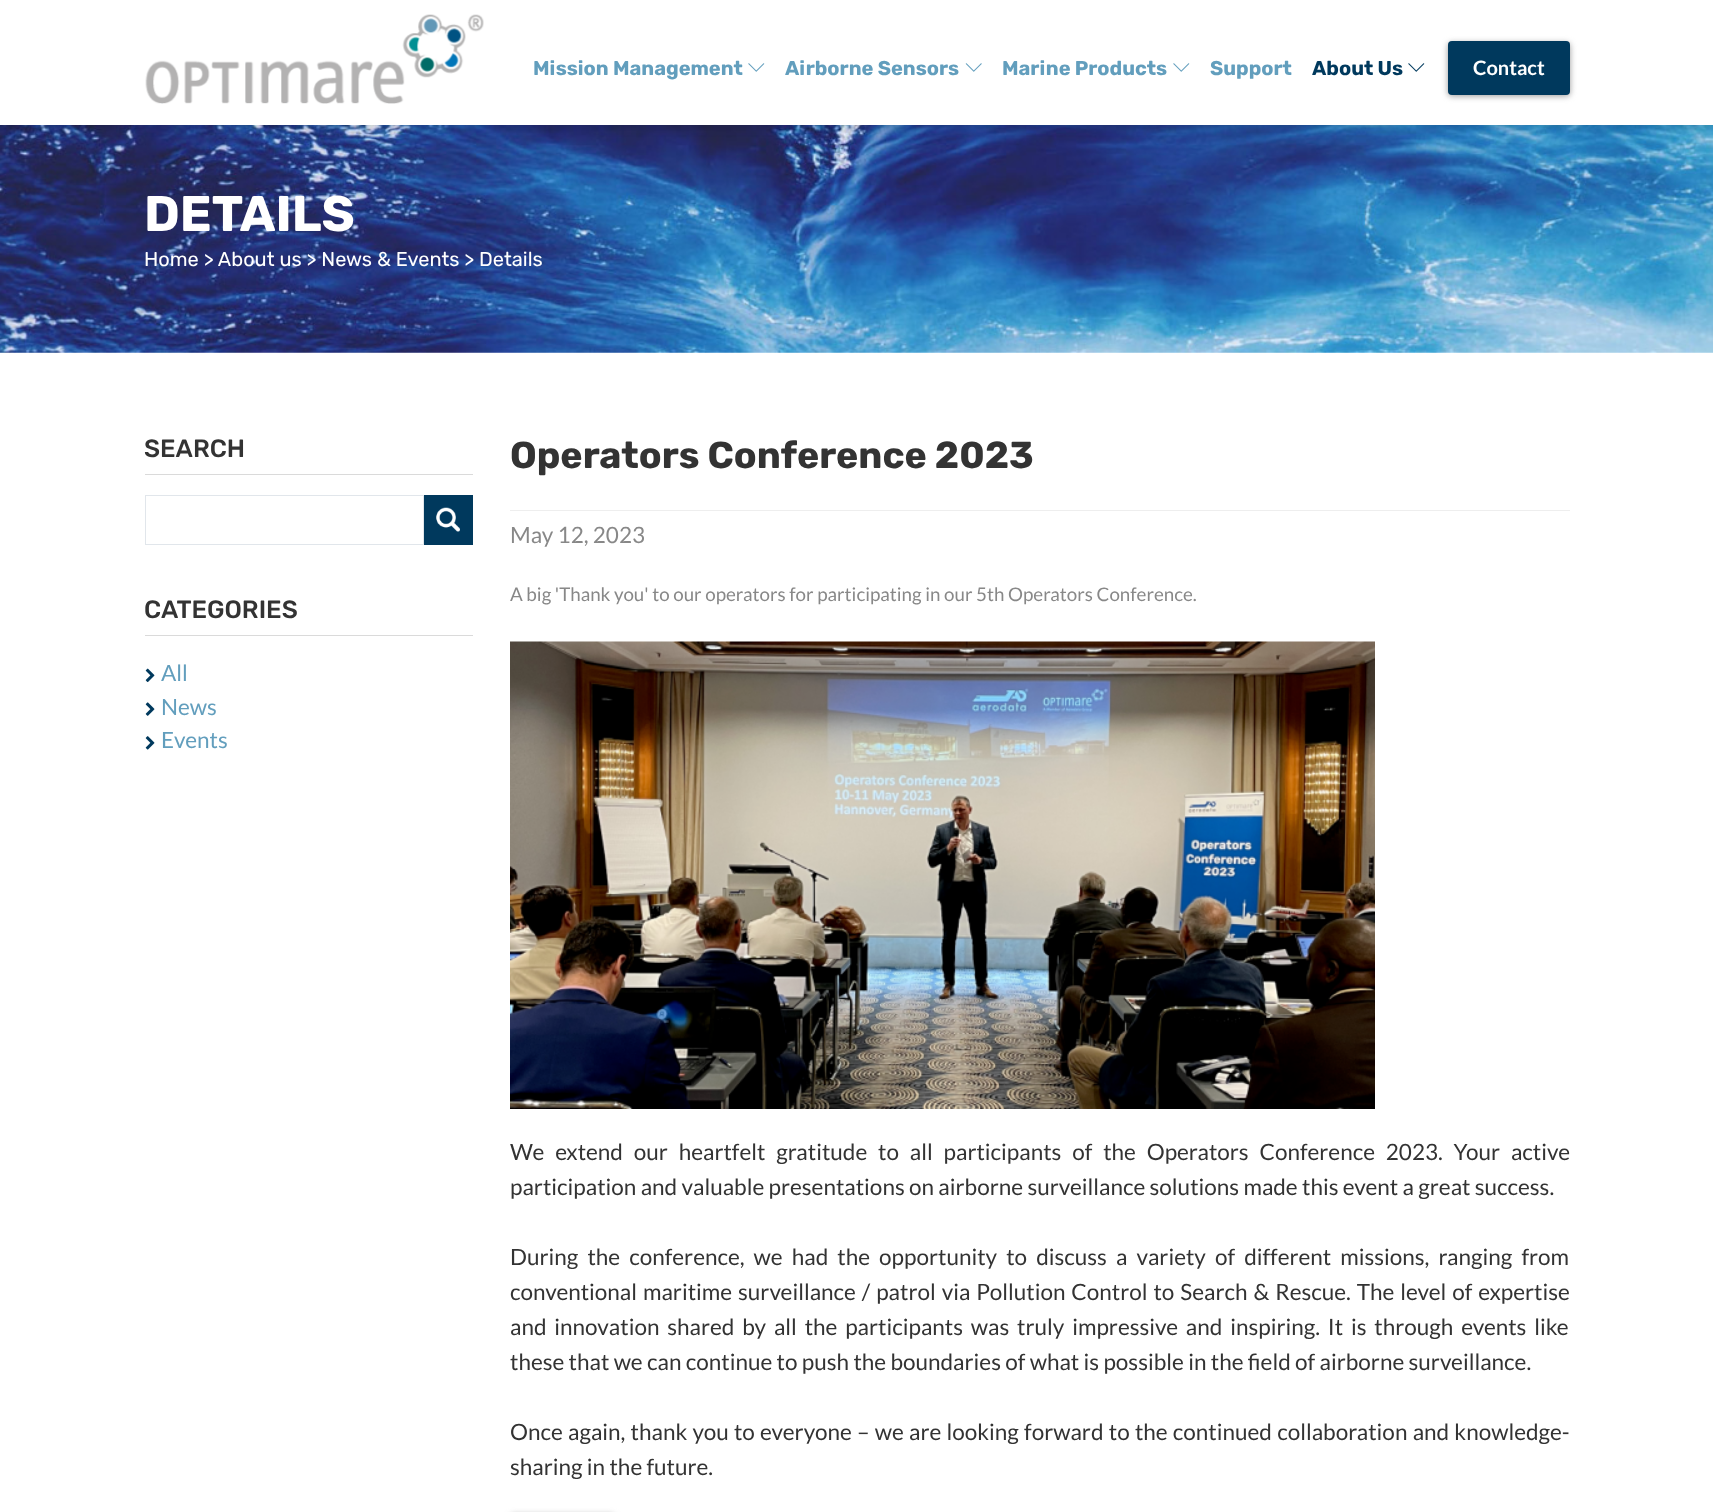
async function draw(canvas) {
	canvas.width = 1713;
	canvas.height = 1512;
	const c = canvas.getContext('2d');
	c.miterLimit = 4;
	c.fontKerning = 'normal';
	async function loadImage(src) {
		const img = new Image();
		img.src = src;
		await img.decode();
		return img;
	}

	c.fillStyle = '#fff';
	c.fillRect(0, 0, 1713, 1512);
	c.drawImage(await loadImage('img5.png'), 0, 125, 1713, 228);
	c.fillStyle = '#00000033';
	c.filter = 'blur(6px)';
	c.beginPath();
	c.rect(0, 0, 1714, 125);
	c.fill();
	c.filter = 'none';
	c.fillStyle = '#fff';
	c.fillRect(0, 0, 1713, 125);
	c.drawImage(await loadImage('img1.png'), 145, 14, 339, 90);
	c.font = '300 20px Rubik';
	c.fillStyle = '#629ebd';
	c.fillText('Mission Management', 533, 75);
	c.drawImage(await loadImage('img2.png'), 748, 63, 17, 9);
	c.fillText('Airborne Sensors', 785, 75);
	c.drawImage(await loadImage('img3.png'), 965, 63, 17, 9);
	c.fillText('Marine Products', 1002, 75);
	c.drawImage(await loadImage('img2.png'), 1173, 63, 17, 9);
	c.fillText('Support', 1210, 75);
	c.fillStyle = '#00395d';
	c.fillText('About Us', 1312, 75);
	c.drawImage(await loadImage('img4.png'), 1408, 63, 17, 9);
	c.fillStyle = '#999';
	c.filter = 'blur(3px)';
	c.beginPath();
	c.roundRect(1448, 43, 122, 53, 4);
	c.fill();
	c.filter = 'none';
	c.fillStyle = '#00395d';
	c.beginPath();
	c.roundRect(1448, 41, 122, 54, 4);
	c.fill();
	c.font = 'bold 20px Lato';
	c.fillStyle = '#fff';
	c.fillText('Contact', 1473, 75);
	c.font = '300 50px Rubik';
	c.fillText('DETAILS', 144, 231);
	c.font = '300 20px "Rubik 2"';
	c.fillText('Home > About us > News & Events > Details', 144, 266);
	c.fillStyle = '#dadada';
	c.fillRect(145, 474, 328, 1);
	c.font = '300 25px "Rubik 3"';
	c.fillStyle = '#333';
	c.fillText('SEARCH', 144, 457);
	c.strokeStyle = '#e1e6eb';
	c.strokeRect(145.5, 495.5, 278, 49);
	c.fillStyle = '#00395d';
	c.fillRect(424, 495, 49, 50);
	c.drawImage(await loadImage('img6.png'), 436, 507, 24, 25);
	c.fillStyle = '#dadada';
	c.fillRect(145, 635, 328, 1);
	c.fillStyle = '#333';
	c.fillText('CATEGORIES', 144, 618);
	c.drawImage(await loadImage('img7.png'), 145, 668, 10, 15);
	c.font = '22.5px Lato';
	c.fillStyle = '#629ebd';
	c.fillText('All', 161, 681);
	c.drawImage(await loadImage('img8.png'), 145, 702, 10, 14);
	c.fillText('News', 161, 715);
	c.drawImage(await loadImage('img9.png'), 145, 736, 10, 14);
	c.fillText('Events', 161, 748);
	c.font = '300 37.5px Rubik';
	c.fillStyle = '#333';
	c.fillText('Operators Conference 2023', 510, 468);
	c.fillStyle = '#eee';
	c.fillRect(510, 510, 1060, 1);
	c.font = '22.5px Lato';
	c.fillStyle = '#888';
	c.fillText('May 12, 2023', 510, 543);
	c.font = '18.75px Lato';
	c.fillText('A big \'Thank you\' to our operators for participating in our 5th Operators Conference.', 510, 601);
	c.drawImage(await loadImage('img10.png'), 510, 641, 865, 468);
	c.wordSpacing = '6.5px';
	c.font = '22.5px Lato';
	c.fillStyle = '#333';
	c.fillText('We extend our heartfelt gratitude to all participants of the Operators Conference 2023. Your active', 510, 1160);
	c.wordSpacing = '0px';
	c.fillText('participation and valuable presentations on airborne surveillance solutions made this event a great success.', 510, 1195);
	c.wordSpacing = '4.75px';
	c.fillText('During the conference, we had the opportunity to discuss a variety of different missions, ranging from', 510, 1265);
	c.wordSpacing = '1.6px';
	c.fillText('conventional maritime surveillance / patrol via Pollution Control to Search & Rescue. The level of expertise', 510, 1300);
	c.wordSpacing = '3.5px';
	c.fillText('and innovation shared by all the participants was truly impressive and inspiring. It is through events like', 510, 1335);
	c.wordSpacing = '0px';
	c.fillText('these that we can continue to push the boundaries of what is possible in the field of airborne surveillance.', 510, 1370);
	c.wordSpacing = '0.9px';
	c.fillText('Once again, thank you to everyone – we are looking forward to the continued collaboration and knowledge-', 510, 1440);
	c.wordSpacing = '0px';
	c.fillText('sharing in the future.', 510, 1475);
	c.fillStyle = '#999';
	c.filter = 'blur(3px)';
	c.beginPath();
	c.roundRect(510, 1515, 105, 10, 4);
	c.fill();
	c.filter = 'none';
}

draw(document.querySelector('canvas'));
